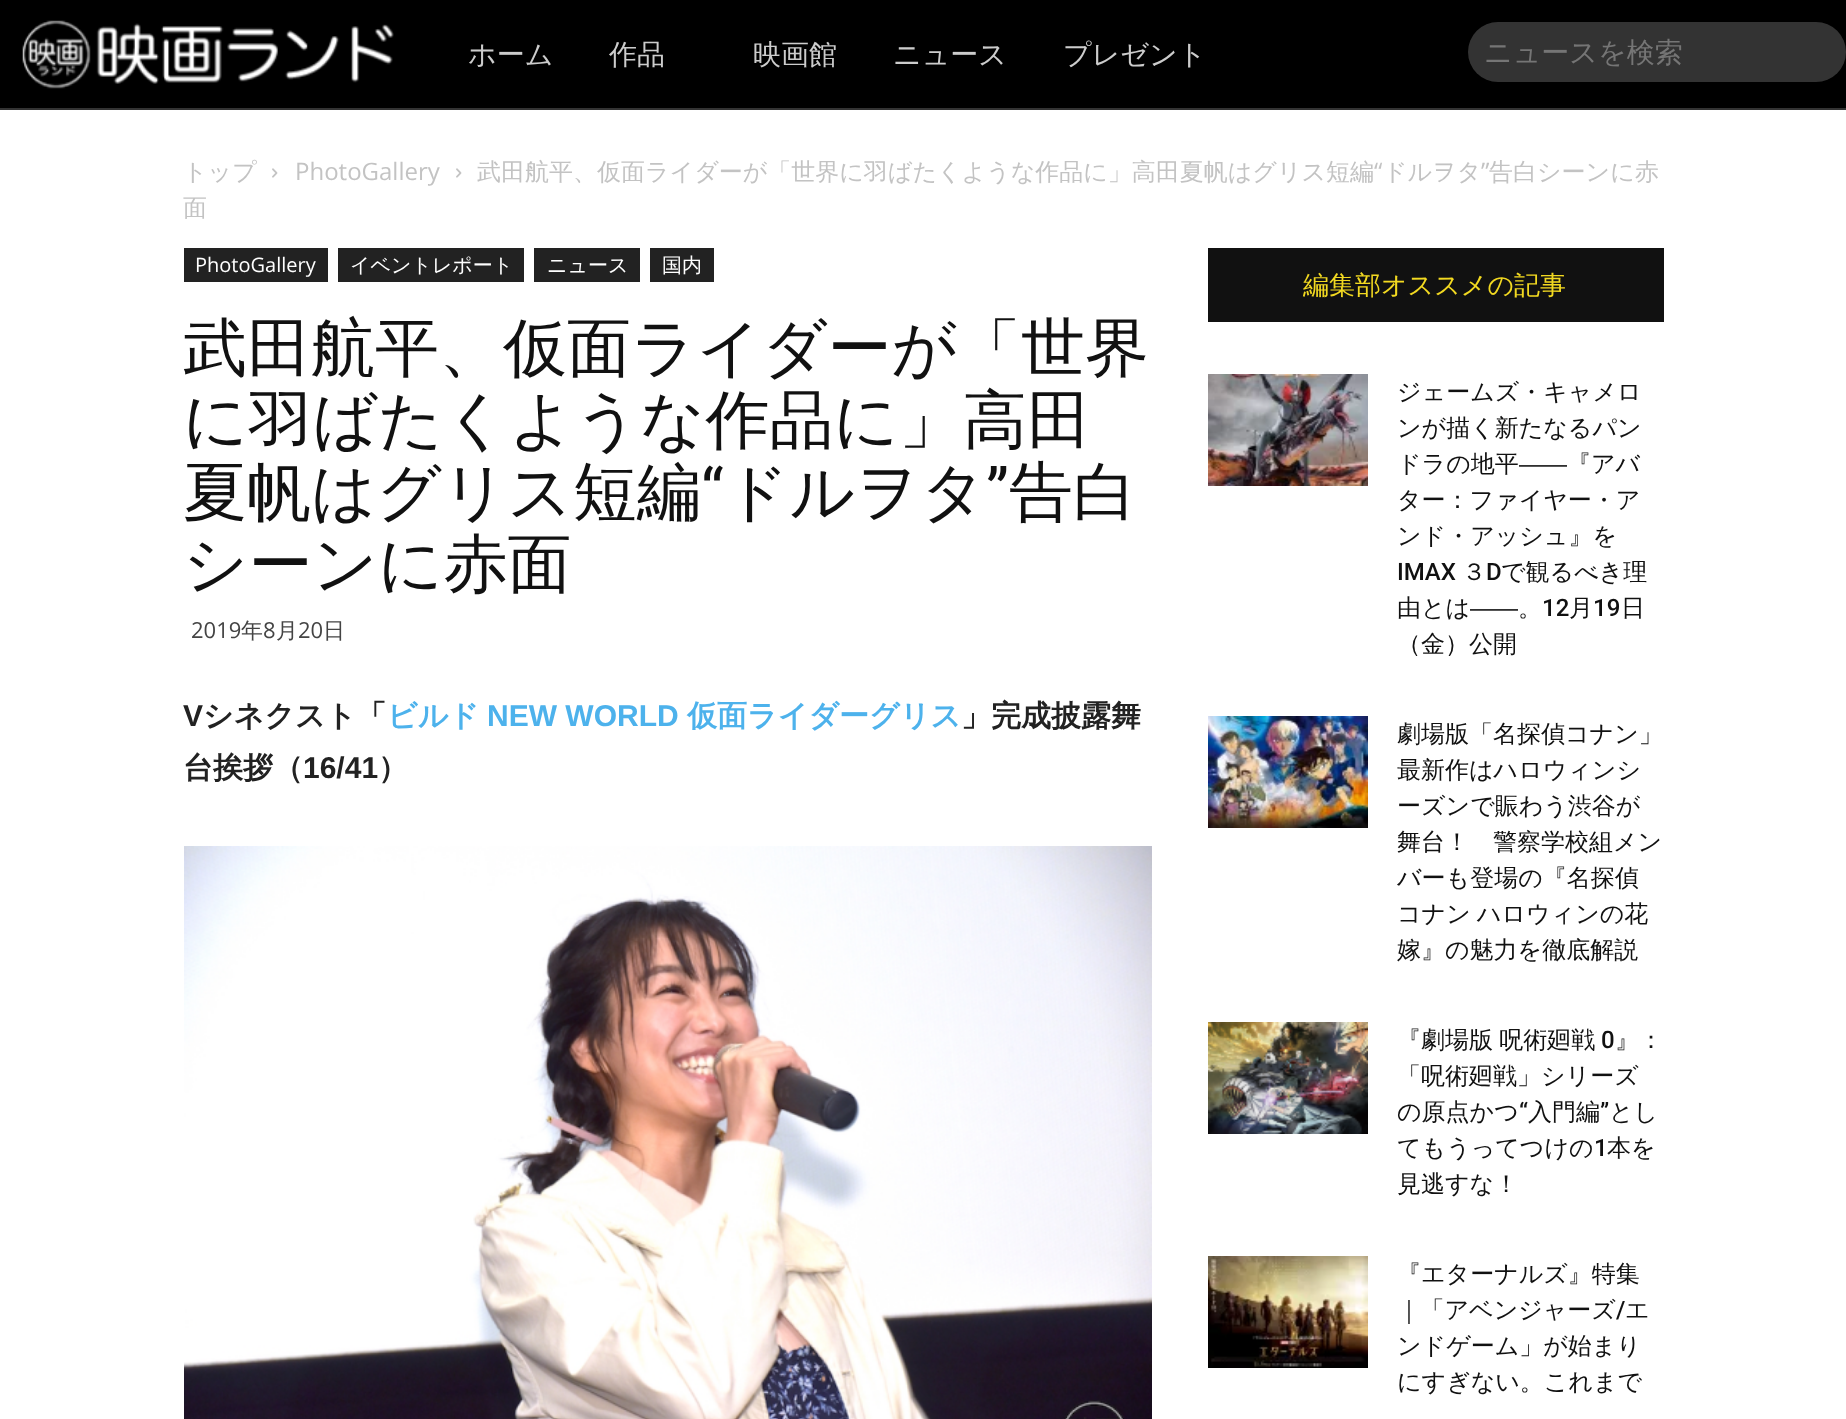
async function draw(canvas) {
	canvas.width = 1846;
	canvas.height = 1419;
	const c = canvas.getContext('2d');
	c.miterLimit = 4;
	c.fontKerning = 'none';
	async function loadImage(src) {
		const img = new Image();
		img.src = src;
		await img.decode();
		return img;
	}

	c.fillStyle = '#fff';
	c.fillRect(0, 0, 1846, 1419);
	c.fillStyle = '#000';
	c.fillRect(0, 0, 1846, 108);
	c.fillStyle = '#333';
	c.fillRect(0, 108, 1846, 2);
	c.drawImage(await loadImage('img1.png'), 22, 20, 372, 69);
	c.font = '500 28px WenQuanYi Zen Hei';
	c.fillStyle = '#ccc';
	for (const [text, x, y] of [
		['ホーム', 468, 64],
		['作品', 609, 64],
		['映画館', 753, 64],
		['ニュース', 893, 64],
		['プレゼント', 1063, 64],
	]) {
		c.fillText(text, x, y);
	}
	c.fillStyle = '#333';
	c.beginPath();
	c.roundRect(1468, 22, 378, 60, 30);
	c.fill();
	c.fillStyle = '#757575';
	c.fillText('ニュースを検索', 1484, 62);
	c.font = '500 24px WenQuanYi Zen Hei';
	c.fillStyle = '#c3c3c3';
	c.fillText('トップ', 183, 180);
	c.font = '24px Open Sans';
	c.fillText('PhotoGallery', 295, 180);
	c.font = '500 24px WenQuanYi Zen Hei';
	c.fillText('武田航平、仮面ライダーが「世界に羽ばたくような作品に」高田夏帆はグリス短編', 477, 180);
	c.font = '24px Open Sans';
	c.fillText('“', 1374, 180);
	c.font = '500 24px WenQuanYi Zen Hei';
	c.fillText('ドルヲタ', 1383, 180);
	c.font = '24px Open Sans';
	c.fillText('”', 1481, 180);
	c.font = '500 24px WenQuanYi Zen Hei';
	c.fillText('告白シーンに赤', 1489, 180);
	c.drawImage(await loadImage('img2.png'), 272, 168, 6, 10);
	c.drawImage(await loadImage('img2.png'), 456, 168, 6, 10);
	c.fillText('面', 183, 216);
	c.fillStyle = '#222';
	c.fillRect(184, 248, 144, 34);
	c.font = '20px Open Sans';
	c.fillStyle = '#fff';
	c.fillText('PhotoGallery', 195, 272);
	c.fillStyle = '#222';
	c.fillRect(338, 248, 186, 34);
	c.font = '500 20px WenQuanYi Zen Hei';
	c.fillStyle = '#fff';
	c.fillText('イベントレポート', 350, 272);
	c.fillStyle = '#222';
	c.fillRect(534, 248, 106, 34);
	c.fillStyle = '#fff';
	c.fillText('ニュース', 547, 272);
	c.fillStyle = '#222';
	c.fillRect(650, 248, 64, 34);
	c.fillStyle = '#fff';
	c.fillText('国内', 662, 272);
	c.font = '500 64px WenQuanYi Zen Hei';
	c.fillStyle = '#111';
	for (const [text, x, y] of [
		['武田航平、仮面ライダーが「世界', 183, 370],
		['に羽ばたくような作品に」高田', 183, 442],
		['夏帆はグリス短編', 183, 514],
	]) {
		c.fillText(text, x, y);
	}
	c.font = '64px Roboto';
	c.fillText('“', 701, 514);
	c.font = '500 64px WenQuanYi Zen Hei';
	c.fillText('ドルヲタ', 724, 514);
	c.font = '64px Roboto';
	c.fillText('”', 986, 514);
	c.font = '500 64px WenQuanYi Zen Hei';
	c.fillText('告白', 1009, 514);
	c.fillText('シーンに赤面', 183, 586);
	c.font = '22px Open Sans';
	c.fillStyle = '#444';
	c.fillText('2019', 191, 638);
	c.font = '500 22px WenQuanYi Zen Hei';
	c.fillText('年', 241, 638);
	c.font = '22px Open Sans';
	c.fillText('8', 263, 638);
	c.font = '500 22px WenQuanYi Zen Hei';
	c.fillText('月', 276, 638);
	c.font = '22px Open Sans';
	c.fillText('20', 298, 638);
	c.font = '500 22px WenQuanYi Zen Hei';
	c.fillText('日', 323, 638);
	c.font = 'bold 30px Liberation Sans';
	c.fillStyle = '#222';
	c.fillText('V', 183, 726);
	c.font = 'bold 30px WenQuanYi Zen Hei';
	c.fillText('シネクスト「', 203, 726);
	c.fillStyle = '#4db2ec';
	c.fillText('ビルド', 387, 726);
	c.font = 'bold 30px Liberation Sans';
	c.fillText('NEW WORLD', 487, 726);
	c.font = 'bold 30px WenQuanYi Zen Hei';
	c.fillText('仮面ライダーグリス', 687, 726);
	c.fillStyle = '#222';
	c.fillText('」完成披露舞', 961, 726);
	c.fillText('台挨拶（', 183, 778);
	c.font = 'bold 30px Liberation Sans';
	c.fillText('16/41', 303, 778);
	c.font = 'bold 30px WenQuanYi Zen Hei';
	c.fillText('）', 378, 778);
	c.drawImage(await loadImage('img3.png'), 184, 846, 968, 573);
	c.fillStyle = '#111';
	c.fillRect(1208, 248, 456, 74);
	c.font = '500 26px WenQuanYi Zen Hei';
	c.fillStyle = '#f2d921';
	c.fillText('編集部オススメの記事', 1303, 294);
	c.drawImage(await loadImage('img4.png'), 1208, 374, 160, 112);
	c.font = '500 24px WenQuanYi Zen Hei';
	c.fillStyle = '#111';
	for (const [text, x, y] of [
		['ジェームズ・キャメロ', 1397, 400],
		['ンが描く新たなるパン', 1397, 436],
		['ドラの地平', 1397, 472],
	]) {
		c.fillText(text, x, y);
	}
	c.font = '24px Liberation Sans';
	c.fillText('――', 1519, 472);
	c.font = '500 24px WenQuanYi Zen Hei';
	for (const [text, x, y] of [
		['『アバ', 1567, 472],
		['ター：ファイヤー・ア', 1397, 508],
		['ンド・アッシュ』を', 1397, 544],
	]) {
		c.fillText(text, x, y);
	}
	c.font = '500 24px Roboto';
	c.fillText('IMAX', 1397, 580);
	c.font = '500 24px WenQuanYi Zen Hei';
	c.fillText('３', 1462, 580);
	c.font = '500 24px Roboto';
	c.fillText('D', 1486, 580);
	c.font = '500 24px WenQuanYi Zen Hei';
	c.fillText('で観るべき理', 1501, 580);
	c.fillText('由とは', 1397, 616);
	c.font = '24px Liberation Sans';
	c.fillText('――', 1470, 616);
	c.font = '500 24px Roboto';
	c.fillText('12', 1542, 616);
	c.font = '500 24px WenQuanYi Zen Hei';
	c.fillText('月', 1569, 616);
	c.font = '500 24px Roboto';
	c.fillText('19', 1593, 616);
	c.font = '500 24px WenQuanYi Zen Hei';
	for (const [text, x, y] of [
		['日', 1621, 616],
		['。', 1518, 616],
		['（金）公開', 1397, 652],
	]) {
		c.fillText(text, x, y);
	}
	c.drawImage(await loadImage('img5.png'), 1208, 716, 160, 112);
	for (const [text, x, y] of [
		['劇場版「名探偵コナン」', 1397, 742],
		['最新作はハロウィンシ', 1397, 778],
		['ーズンで賑わう渋谷が', 1397, 814],
		['舞台！　警察学校組メン', 1397, 850],
		['バーも登場の『名探偵', 1397, 886],
	]) {
		c.fillText(text, x, y);
	}
	c.wordSpacing = '-1px';
	c.fillText('コナン ハロウィンの花', 1397, 922);
	c.wordSpacing = '0px';
	c.fillText('嫁』の魅力を徹底解説', 1397, 958);
	c.drawImage(await loadImage('img6.png'), 1208, 1022, 160, 112);
	c.wordSpacing = '-1px';
	c.fillText('『劇場版 呪術廻戦', 1397, 1048);
	c.wordSpacing = '0px';
	c.font = '500 24px Roboto';
	c.fillText('0', 1601, 1048);
	c.font = '500 24px WenQuanYi Zen Hei';
	for (const [text, x, y] of [
		['』：', 1615, 1048],
		['「呪術廻戦」シリーズ', 1397, 1084],
		['の原点かつ', 1397, 1120],
	]) {
		c.fillText(text, x, y);
	}
	c.font = '500 24px Roboto';
	c.fillText('“', 1519, 1120);
	c.font = '500 24px WenQuanYi Zen Hei';
	c.fillText('入門編', 1528, 1120);
	c.font = '500 24px Roboto';
	c.fillText('”', 1600, 1120);
	c.font = '500 24px WenQuanYi Zen Hei';
	c.fillText('とし', 1609, 1120);
	c.fillText('てもうってつけの', 1397, 1156);
	c.font = '500 24px Roboto';
	c.fillText('1', 1594, 1156);
	c.font = '500 24px WenQuanYi Zen Hei';
	c.fillText('本を', 1607, 1156);
	c.fillText('見逃すな！', 1397, 1192);
	c.drawImage(await loadImage('img7.png'), 1208, 1256, 160, 112);
	c.fillText('『エターナルズ』特集', 1397, 1282);
	c.fillText('｜「アベンジャーズ', 1397, 1318);
	c.font = '500 24px Roboto';
	c.fillText('/', 1616, 1318);
	c.font = '500 24px WenQuanYi Zen Hei';
	for (const [text, x, y] of [
		['エ', 1625, 1318],
		['ンドゲーム」が始まり', 1397, 1354],
		['にすぎない。これまで', 1397, 1390],
	]) {
		c.fillText(text, x, y);
	}
}

draw(document.querySelector('canvas'));
